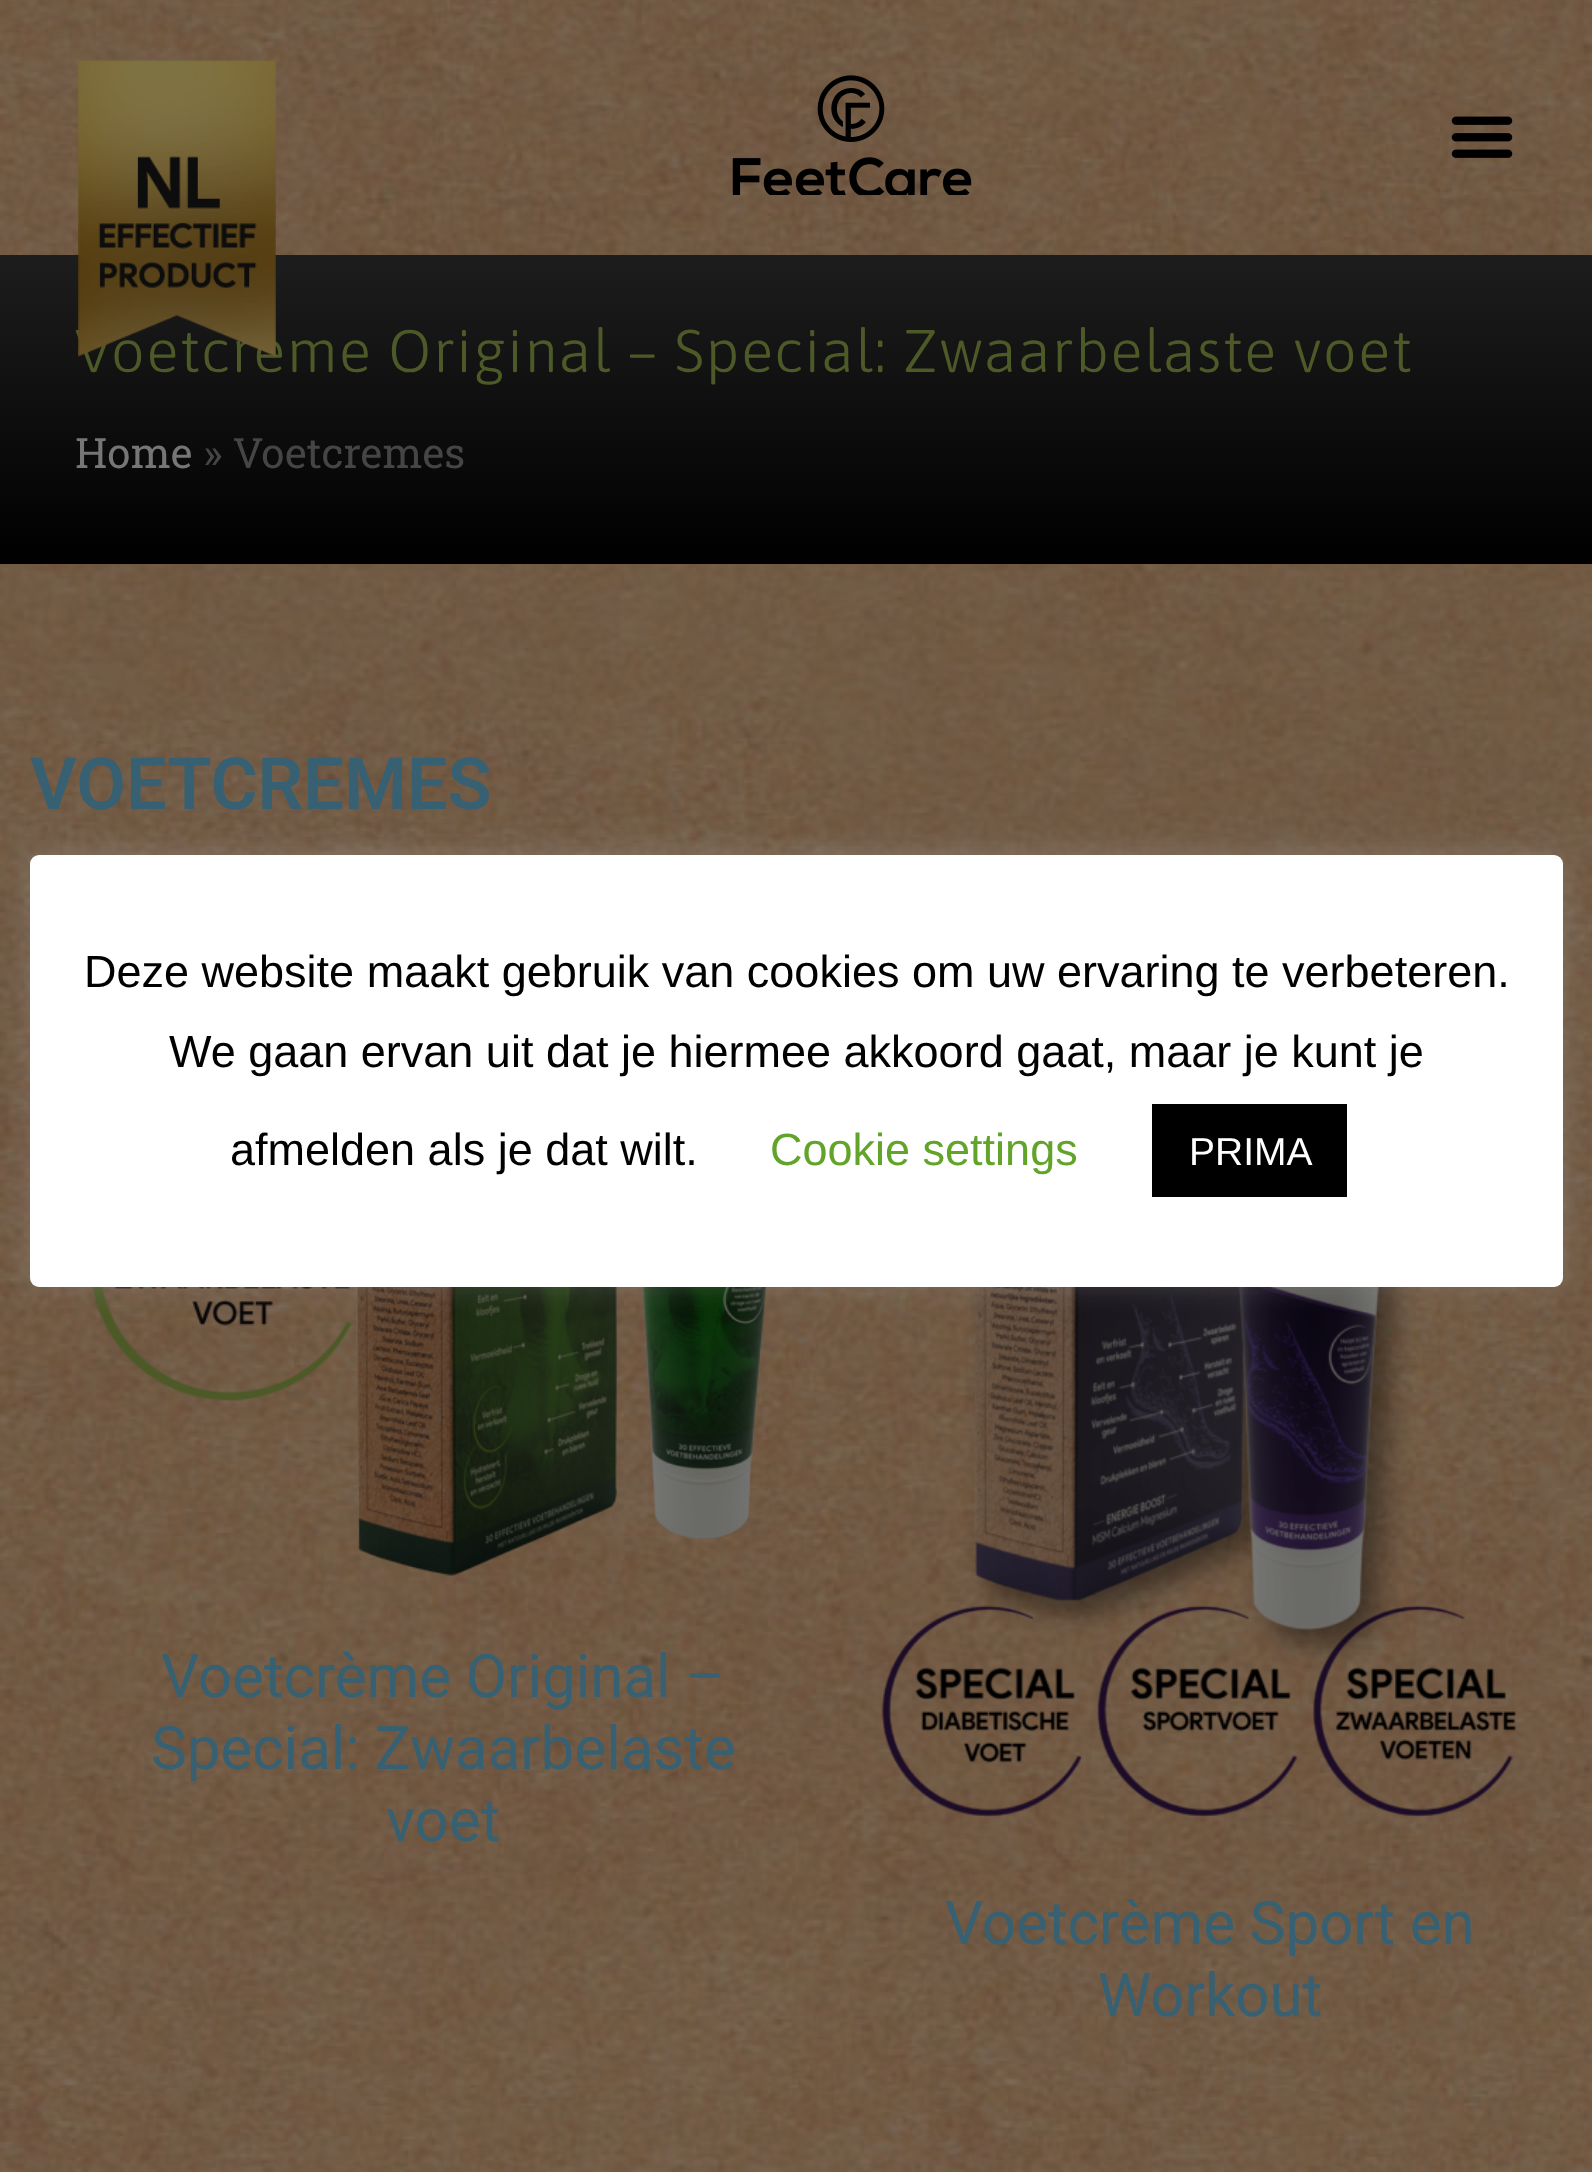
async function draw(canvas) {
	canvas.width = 1592;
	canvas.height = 2172;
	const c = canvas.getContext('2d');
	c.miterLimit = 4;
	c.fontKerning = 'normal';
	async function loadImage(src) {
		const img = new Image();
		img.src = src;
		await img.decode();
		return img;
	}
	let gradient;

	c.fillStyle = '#fff';
	c.fillRect(0, 0, 1592, 2172);
	c.drawImage(await loadImage('img1.png'), 0, 0, 1592, 2172);
	gradient = c.createLinearGradient(797, 255, 797, 564);
	gradient.addColorStop(0, '#1d1d1d');
	gradient.addColorStop(1, '#000');
	c.fillStyle = gradient;
	c.fillRect(0, 255, 1592, 309);
	c.letterSpacing = '1.2px';
	c.font = '300 60px Asap';
	c.fillStyle = '#4d5a28';
	c.fillText('Voetcrème Original – Special: Zwaarbelaste voet', 75, 372);
	c.drawImage(await loadImage('img2.png'), 78, 60, 198, 297);
	c.drawImage(await loadImage('img3.png'), 732, 75, 240, 120);
	c.drawImage(await loadImage('img4.png'), 1451, 116, 62, 42);
	c.letterSpacing = '0px';
	c.font = '42px Roboto Slab';
	c.fillStyle = '#767676';
	c.fillText('Home', 75, 468);
	c.fillStyle = '#454545';
	c.fillText('» Voetcremes', 203, 468);
	c.font = '600 72px Roboto';
	c.fillStyle = '#376172';
	c.fillText('VOETCREMES', 30, 809);
	c.drawImage(await loadImage('img5.png'), 91, 1287, 677, 289);
	c.font = '60px Roboto';
	for (const [text, x, y] of [
		['Voetcrème Original –', 161, 1697],
		['Special: Zwaarbelaste', 151, 1769],
		['voet', 386, 1841],
	]) {
		c.fillText(text, x, y);
	}
	c.drawImage(await loadImage('img6.png'), 881, 1287, 636, 530);
	c.fillText('Voetcrème Sport en', 945, 1944);
	c.fillText('Workout', 1098, 2016);
	c.drawImage(await loadImage('img7.png'), 342, 2166, 137, 3);
	c.fillStyle = '#acabab4d';
	c.filter = 'blur(15px)';
	c.beginPath();
	c.roundRect(30, 852, 1533, 432, 9);
	c.fill();
	c.filter = 'none';
	c.fillStyle = '#fff';
	c.beginPath();
	c.roundRect(30, 855, 1533, 432, 9);
	c.fill();
	c.font = '45px Liberation Sans';
	c.fillStyle = '#000';
	for (const [text, x, y] of [
		['Deze website maakt gebruik van cookies om uw ervaring te verbeteren.', 84, 987],
		['We gaan ervan uit dat je hiermee akkoord gaat, maar je kunt je', 169, 1067],
		['afmelden als je dat wilt.', 230, 1165],
	]) {
		c.fillText(text, x, y);
	}
	c.fillStyle = '#62a329';
	c.fillText('Cookie settings', 770, 1165);
	c.fillStyle = '#000';
	c.fillRect(1152, 1104, 195, 93);
	c.font = '39px Liberation Sans';
	c.fillStyle = '#fff';
	c.fillText('PRIMA', 1189, 1165);
}

draw(document.querySelector('canvas'));
